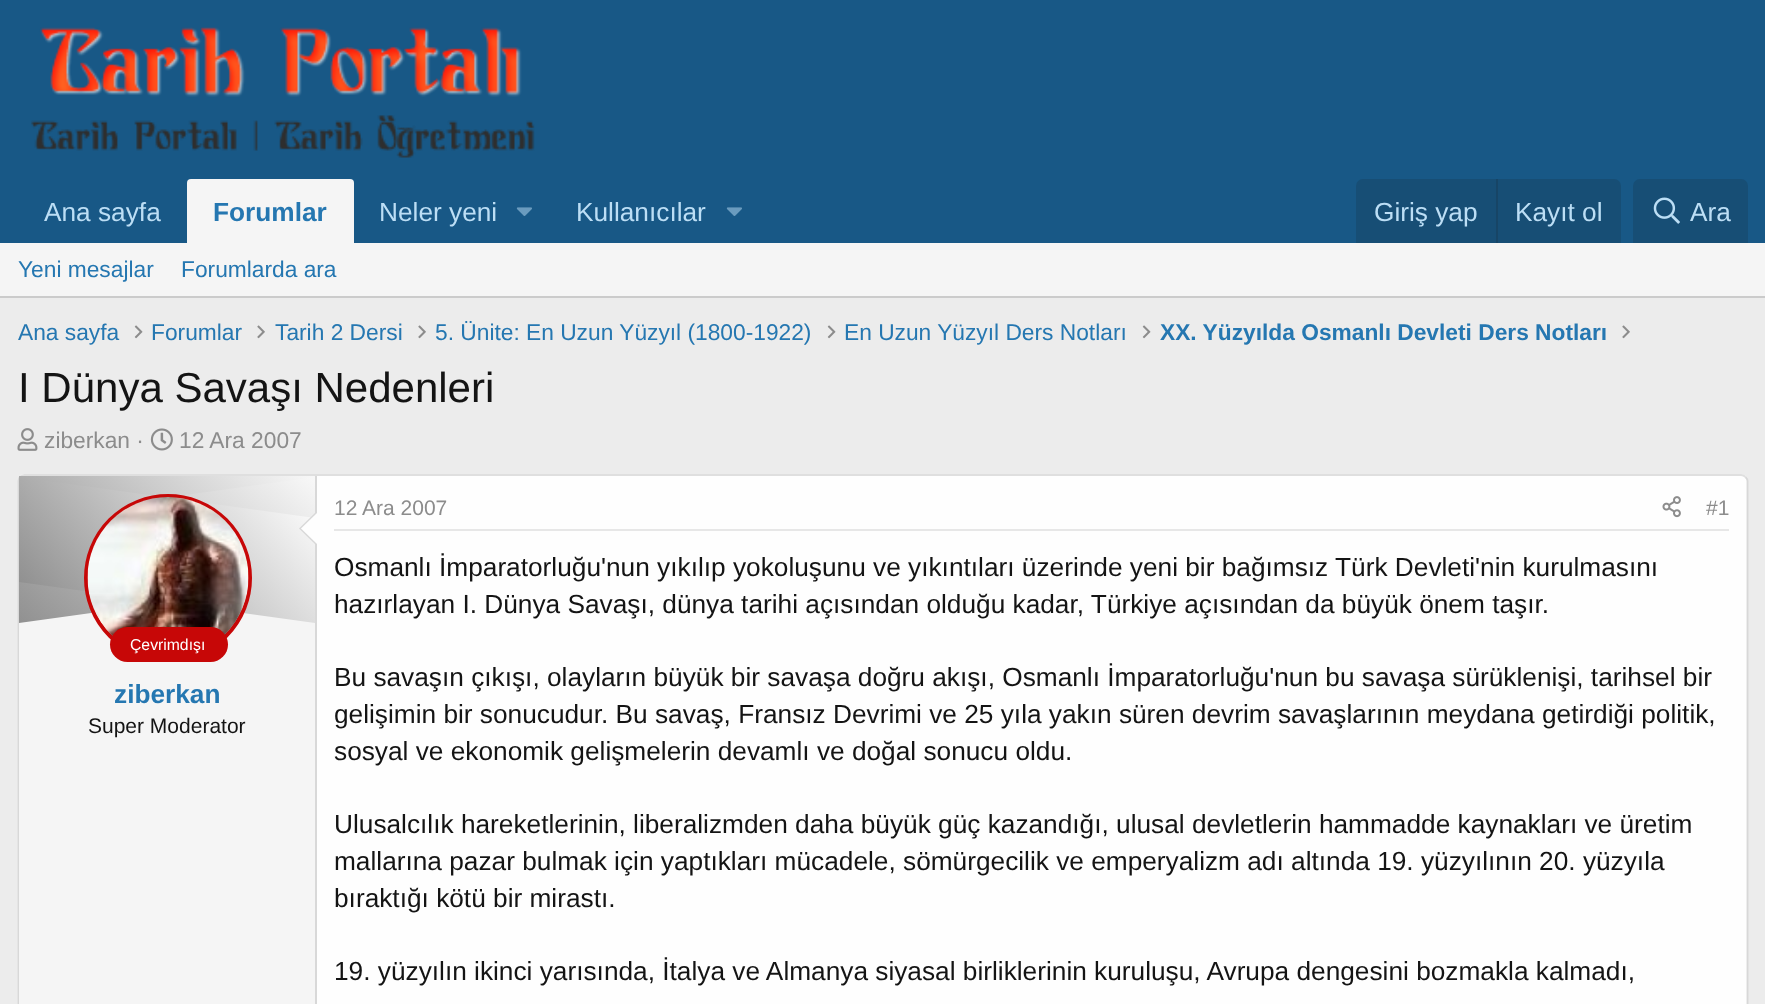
async function draw(canvas) {
	canvas.width = 1765;
	canvas.height = 1004;
	const c = canvas.getContext('2d');
	c.miterLimit = 4;
	c.fontKerning = 'normal';
	async function loadImage(src) {
		const img = new Image();
		img.src = src;
		await img.decode();
		return img;
	}
	let gradient;

	c.fillStyle = '#ececec';
	c.fillRect(0, 0, 1765, 1004);
	c.fillStyle = '#185886';
	c.fillRect(0, 0, 1765, 243);
	c.drawImage(await loadImage('img1.png'), 31, 27, 504, 131);
	c.font = '26.25px Liberation Sans';
	c.fillStyle = '#bcdef5';
	c.fillText('Ana sayfa', 44, 221);
	c.fillStyle = '#f5f5f5';
	c.beginPath();
	c.roundRect(187, 179, 167, 64, [4, 4, 0, 0]);
	c.fill();
	c.font = 'bold 26.25px Liberation Sans';
	c.fillStyle = '#2577b1';
	c.fillText('Forumlar', 213, 221);
	c.font = '26.25px Liberation Sans';
	c.fillStyle = '#bcdef5';
	c.fillText('Neler yeni', 379, 221);
	c.drawImage(await loadImage('img2.png'), 516, 207, 16, 9);
	c.fillText('Kullanıcılar', 576, 221);
	c.drawImage(await loadImage('img2.png'), 726, 207, 16, 9);
	c.fillStyle = '#174e75';
	c.beginPath();
	c.roundRect(1356, 179, 265, 64, [7, 7, 0, 0]);
	c.fill();
	c.fillStyle = '#bcdef5';
	c.fillText('Giriş yap', 1374, 221);
	c.fillStyle = '#174566';
	c.fillRect(1496, 179, 2, 64);
	c.fillStyle = '#bcdef5';
	c.fillText('Kayıt ol', 1515, 221);
	c.fillStyle = '#174e75';
	c.beginPath();
	c.roundRect(1633, 179, 115, 64, [7, 7, 0, 0]);
	c.fill();
	c.drawImage(await loadImage('img3.png'), 1653, 197, 27, 27);
	c.fillStyle = '#bcdef5';
	c.fillText('Ara', 1690, 221);
	c.fillStyle = '#f5f5f5';
	c.fillRect(0, 243, 1765, 53);
	c.fillStyle = '#cbcbcb';
	c.fillRect(0, 296, 1765, 2);
	c.font = '22.75px Liberation Sans';
	c.fillStyle = '#2577b1';
	for (const [text, x, y] of [
		['Yeni mesajlar', 18, 277],
		['Forumlarda ara', 181, 277],
		['Ana sayfa', 18, 340],
	]) {
		c.fillText(text, x, y);
	}
	c.drawImage(await loadImage('img4.png'), 134, 325, 9, 14);
	c.fillText('Forumlar', 151, 340);
	c.drawImage(await loadImage('img5.png'), 257, 325, 8, 14);
	c.fillText('Tarih 2 Dersi', 275, 340);
	c.drawImage(await loadImage('img5.png'), 418, 325, 8, 14);
	c.fillText('5. Ünite: En Uzun Yüzyıl (1800-1922)', 435, 340);
	c.drawImage(await loadImage('img4.png'), 827, 325, 9, 14);
	c.fillText('En Uzun Yüzyıl Ders Notları', 844, 340);
	c.drawImage(await loadImage('img4.png'), 1142, 325, 9, 14);
	c.font = 'bold 22.75px Liberation Sans';
	c.fillText('XX. Yüzyılda Osmanlı Devleti Ders Notları', 1160, 340);
	c.drawImage(await loadImage('img5.png'), 1622, 325, 8, 14);
	c.font = '42px Liberation Sans';
	c.fillStyle = '#141414';
	c.fillText('I Dünya Savaşı Nedenleri', 18, 402);
	c.drawImage(await loadImage('img6.png'), 17, 428, 21, 23);
	c.font = '22.75px Liberation Sans';
	c.fillStyle = '#8c8c8c';
	c.fillText('ziberkan ·', 44, 448);
	c.drawImage(await loadImage('img7.png'), 150, 428, 23, 23);
	c.fillText('12 Ara 2007', 179, 448);
	c.fillStyle = '#fefefe';
	c.beginPath();
	c.roundRect(18, 474, 1730, 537, 7);
	c.fill();
	c.beginPath();
	c.moveTo(20, 477);
	c.bezierCurveTo(21.5, 476, 23, 475, 24.5, 475);
	c.lineTo(1741, 475);
	c.bezierCurveTo(1743, 475, 1744.5, 476, 1745.5, 477);
	c.strokeStyle = '#dfdfdf';
	c.lineWidth = 1.8;
	c.stroke();
	c.beginPath();
	c.moveTo(1745.5, 477);
	c.bezierCurveTo(1746.5, 478, 1747.5, 479.5, 1747.5, 481);
	c.lineTo(1747.5, 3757);
	c.bezierCurveTo(1747.5, 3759, 1746.5, 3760.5, 1745.5, 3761.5);
	c.strokeStyle = '#d8d8d8';
	c.stroke();
	c.beginPath();
	c.moveTo(20, 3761.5);
	c.bezierCurveTo(19, 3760.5, 18.5, 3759, 18.5, 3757);
	c.lineTo(18.5, 481);
	c.bezierCurveTo(18.5, 479.5, 19, 478, 20, 477);
	c.stroke();
	c.fillStyle = '#f5f5f5';
	c.fillRect(19, 612, 296, 392);
	c.fillStyle = '#d8d8d8';
	c.fillRect(315, 476, 2, 528);
	gradient = c.createLinearGradient(67, 629, 267, 428);
	gradient.addColorStop(0, '#919191');
	gradient.addColorStop(1, '#f8f8f8');
	c.fillStyle = gradient;
	c.fillRect(19, 476, 296, 20);
	gradient = c.createLinearGradient(67, 664, 267, 436);
	gradient.addColorStop(0, '#919191');
	gradient.addColorStop(1, '#f8f8f8');
	c.fillStyle = gradient;
	c.beginPath();
	c.moveTo(19, 518);
	c.lineTo(315, 477);
	c.lineTo(315, 582);
	c.lineTo(19, 623);
	c.closePath();
	c.fill();
	gradient = c.createLinearGradient(67, 636, 267, 464);
	gradient.addColorStop(0, '#919191');
	gradient.addColorStop(1, '#f8f8f8');
	c.fillStyle = gradient;
	c.beginPath();
	c.moveTo(19, 477);
	c.lineTo(315, 518);
	c.lineTo(315, 623);
	c.lineTo(19, 582);
	c.closePath();
	c.fill();
	c.fillStyle = '#d8d8d8';
	c.beginPath();
	c.moveTo(317, 511);
	c.lineTo(317, 546);
	c.lineTo(299, 528.5);
	c.closePath();
	c.fill();
	c.fillStyle = '#fefefe';
	c.beginPath();
	c.moveTo(317, 513);
	c.lineTo(317, 544);
	c.lineTo(301, 528.5);
	c.closePath();
	c.fill();
	c.beginPath();
	c.arc(168, 578, 82, 0, 2 * Math.PI);
	c.strokeStyle = '#c70707';
	c.lineWidth = 4;
	c.stroke();
	c.drawImage(await loadImage('img8.png'), 87, 497, 162, 140);
	c.fillStyle = '#c70707';
	c.beginPath();
	c.roundRect(110, 627, 118, 35, 17.5);
	c.fill();
	c.font = '15.75px Liberation Sans';
	c.fillStyle = '#fff';
	c.fillText('Çevrimdışı', 130, 650);
	c.font = 'bold 26.25px Liberation Sans';
	c.fillStyle = '#2577b1';
	c.fillText('ziberkan', 114, 703);
	c.font = '21px Liberation Sans';
	c.fillStyle = '#141414';
	c.fillText('Super Moderator', 88, 733);
	c.fillStyle = '#e7e7e7';
	c.fillRect(334, 529, 1395, 2);
	c.fillStyle = '#8c8c8c';
	c.fillText('12 Ara 2007', 334, 515);
	c.drawImage(await loadImage('img9.png'), 1662, 496, 19, 22);
	c.fillText('#1', 1706, 515);
	c.font = '26.25px Liberation Sans';
	c.fillStyle = '#141414';
	for (const [text, x, y] of [
		['Osmanlı İmparatorluğu\'nun yıkılıp yokoluşunu ve yıkıntıları üzerinde yeni bir bağımsız Türk Devleti\'nin kurulmasını', 334, 576],
		['hazırlayan I. Dünya Savaşı, dünya tarihi açısından olduğu kadar, Türkiye açısından da büyük önem taşır.', 334, 613],
		['Bu savaşın çıkışı, olayların büyük bir savaşa doğru akışı, Osmanlı İmparatorluğu\'nun bu savaşa sürüklenişi, tarihsel bir', 334, 686],
		['gelişimin bir sonucudur. Bu savaş, Fransız Devrimi ve 25 yıla yakın süren devrim savaşlarının meydana getirdiği politik,', 334, 723],
		['sosyal ve ekonomik gelişmelerin devamlı ve doğal sonucu oldu.', 334, 760],
		['Ulusalcılık hareketlerinin, liberalizmden daha büyük güç kazandığı, ulusal devletlerin hammadde kaynakları ve üretim', 334, 833],
		['mallarına pazar bulmak için yaptıkları mücadele, sömürgecilik ve emperyalizm adı altında 19. yüzyılının 20. yüzyıla', 334, 870],
		['bıraktığı kötü bir mirastı.', 334, 907],
		['19. yüzyılın ikinci yarısında, İtalya ve Almanya siyasal birliklerinin kuruluşu, Avrupa dengesini bozmakla kalmadı,', 334, 980],
	]) {
		c.fillText(text, x, y);
	}
}

draw(document.querySelector('canvas'));
